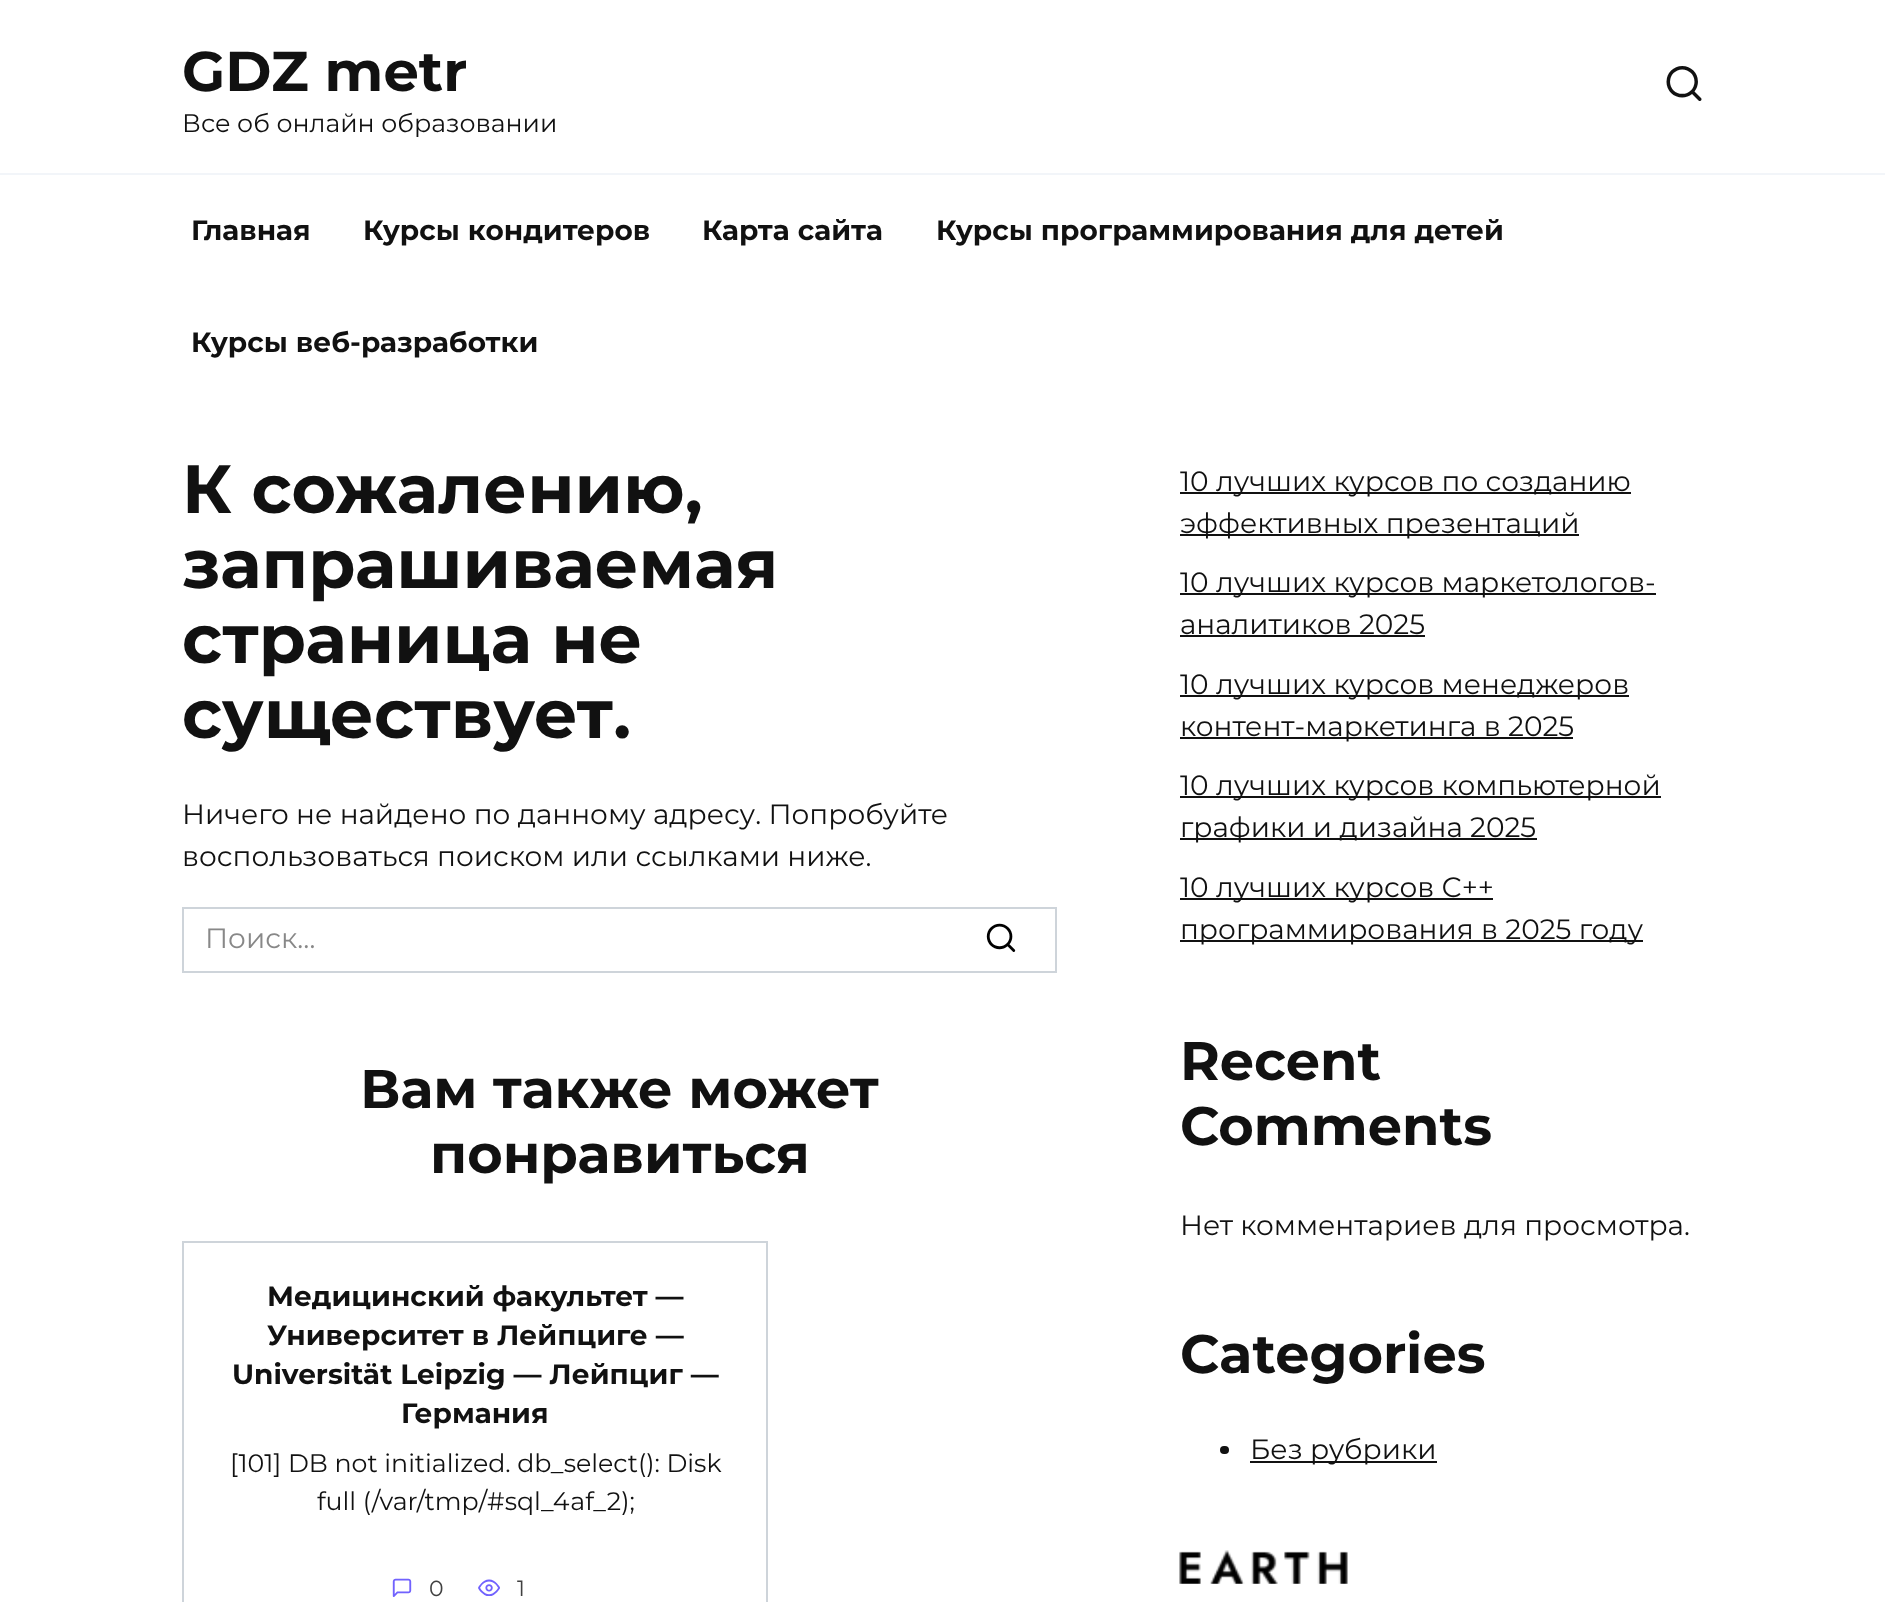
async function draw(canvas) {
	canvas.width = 1885;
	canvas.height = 1602;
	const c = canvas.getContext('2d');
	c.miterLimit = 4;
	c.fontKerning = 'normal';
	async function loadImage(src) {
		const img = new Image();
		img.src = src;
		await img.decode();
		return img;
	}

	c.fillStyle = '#fff';
	c.fillRect(0, 0, 1885, 1602);
	c.fillStyle = '#f2f5f9';
	c.fillRect(0, 173, 1885, 2);
	c.font = 'bold 56px Montserrat';
	c.fillStyle = '#111';
	c.fillText('GDZ metr', 182, 91);
	c.font = '25.25px Montserrat';
	c.fillText('Все об онлайн образовании', 182, 132);
	c.font = '42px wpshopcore';
	c.fillText('🔍', 1663, 101);
	c.font = 'bold 28px Montserrat';
	for (const [text, x, y] of [
		['Главная', 191, 240],
		['Курсы кондитеров', 363, 240],
		['Карта сайта', 702, 240],
		['Курсы программирования для детей', 936, 240],
		['Курсы веб-разработки', 191, 352],
	]) {
		c.fillText(text, x, y);
	}
	c.font = 'bold 68.25px Montserrat';
	for (const [text, x, y] of [
		['К сожалению,', 182, 513],
		['запрашиваемая', 182, 588],
		['страница не', 182, 663],
		['существует.', 182, 738],
	]) {
		c.fillText(text, x, y);
	}
	c.font = '28px Montserrat';
	c.fillText('Ничего не найдено по данному адресу. Попробуйте', 182, 824);
	c.fillText('воспользоваться поиском или ссылками ниже.', 182, 866);
	c.strokeStyle = '#ced4da';
	c.lineWidth = 2;
	c.strokeRect(183, 908, 873, 64);
	c.fillStyle = '#888';
	c.fillText('Поиск…', 205, 948);
	c.font = '34px wpshopcore';
	c.fillStyle = '#000';
	c.fillText('🔍', 984, 952);
	c.font = 'bold 54.25px Montserrat';
	c.fillStyle = '#111';
	c.fillText('Вам также может', 360, 1108);
	c.fillText('понравиться', 430, 1173);
	c.strokeRect(183, 1242, 584, 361);
	c.font = 'bold 28px Montserrat';
	for (const [text, x, y] of [
		['Медицинский факультет —', 267, 1306],
		['Университет в Лейпциге —', 267, 1345],
		['Universität Leipzig — Лейпциг —', 232, 1384],
		['Германия', 401, 1423],
	]) {
		c.fillText(text, x, y);
	}
	c.font = '25.25px Montserrat';
	c.fillText('[101] DB not initialized. db_select(): Disk', 230, 1472);
	c.fillText('full (/var/tmp/#sql_4af_2);', 317, 1510);
	c.font = '22px wpshopcore';
	c.fillStyle = '#7162fe';
	c.fillText('💬', 391, 1597);
	c.font = '22px Montserrat';
	c.fillStyle = '#414141';
	c.fillText('0', 429, 1596);
	c.font = '22px wpshopcore';
	c.fillStyle = '#7162fe';
	c.fillText('👀', 478, 1597);
	c.font = '22px Montserrat';
	c.fillStyle = '#414141';
	c.fillText('1', 517, 1596);
	c.fillStyle = '#111';
	c.fillRect(1180, 492, 451, 2);
	c.font = '28px Montserrat';
	c.fillText('10 лучших курсов по созданию', 1180, 491);
	c.fillRect(1180, 534, 399, 2);
	c.fillText('эффективных презентаций', 1180, 533);
	c.fillRect(1180, 593, 476, 2);
	c.fillText('10 лучших курсов маркетологов-', 1180, 592);
	c.fillText('аналитиков 2025', 1180, 634);
	c.fillRect(1180, 635, 245, 2);
	c.fillRect(1180, 695, 449, 2);
	c.fillText('10 лучших курсов менеджеров', 1180, 694);
	c.fillRect(1180, 737, 393, 2);
	c.fillText('контент-маркетинга в 2025', 1180, 736);
	c.fillRect(1180, 796, 481, 2);
	c.fillText('10 лучших курсов компьютерной', 1180, 795);
	c.fillRect(1180, 838, 357, 2);
	c.fillText('графики и дизайна 2025', 1180, 837);
	c.fillRect(1180, 898, 313, 2);
	c.fillText('10 лучших курсов С++', 1180, 897);
	c.fillRect(1180, 940, 463, 2);
	c.fillText('программирования в 2025 году', 1180, 939);
	c.font = 'bold 54.25px Montserrat';
	c.fillText('Recent', 1180, 1080);
	c.fillText('Comments', 1180, 1145);
	c.font = '28px Montserrat';
	c.fillText('Нет комментариев для просмотра.', 1180, 1235);
	c.font = 'bold 54.25px Montserrat';
	c.fillText('Categories', 1180, 1373);
	c.beginPath();
	c.roundRect(1220, 1446, 9, 8, 4);
	c.fill();
	c.fillRect(1250, 1461, 187, 2);
	c.font = '28px Montserrat';
	c.fillText('Без рубрики', 1250, 1459);
	c.drawImage(await loadImage('img1.png'), 1179, 1550, 169, 34);
}

draw(document.querySelector('canvas'));
